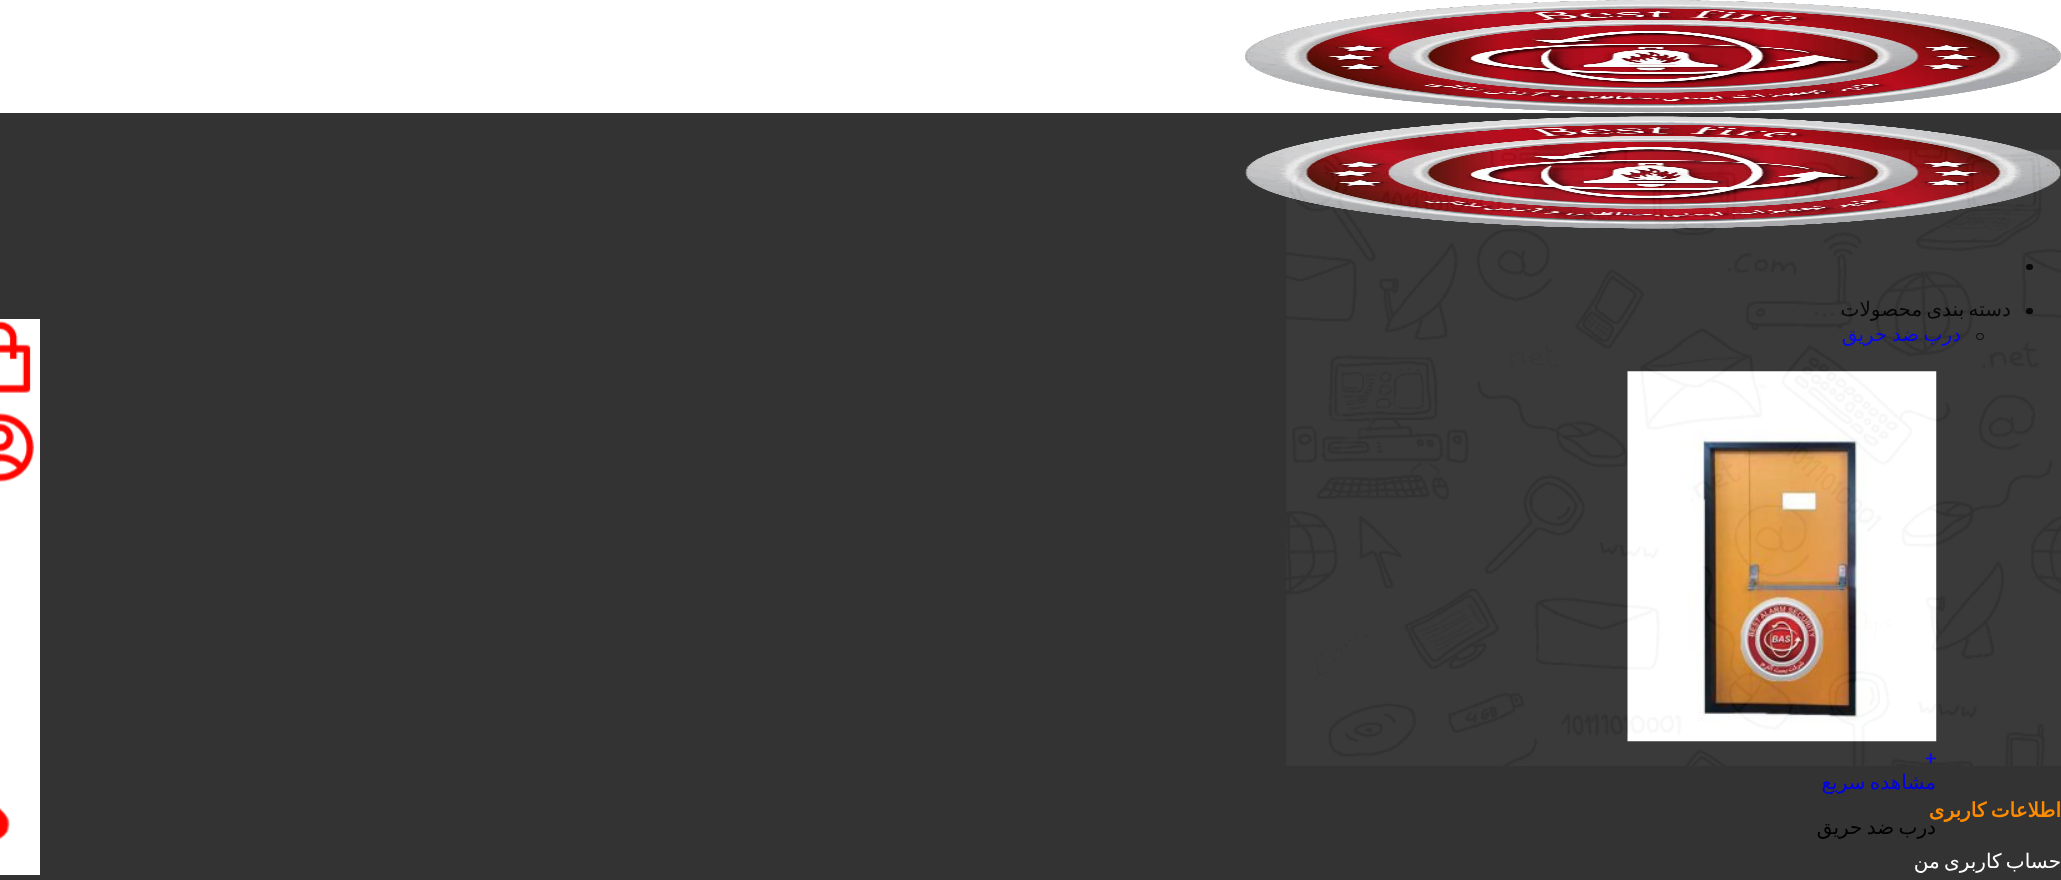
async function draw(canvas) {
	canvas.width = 2061;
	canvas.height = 880;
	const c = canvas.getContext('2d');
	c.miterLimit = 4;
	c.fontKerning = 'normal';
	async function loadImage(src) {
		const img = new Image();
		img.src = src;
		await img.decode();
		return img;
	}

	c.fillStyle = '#fff';
	c.fillRect(0, 0, 2061, 880);
	c.drawImage(await loadImage('img1.png'), 1245, 0, 816, 113);
	c.fillStyle = '#333';
	c.fillRect(0, 113, 2061, 767);
	c.drawImage(await loadImage('img2.png'), 1245, 116, 816, 113);
	c.fillStyle = '#000';
	c.beginPath();
	c.roundRect(2026, 264, 7, 6, 3);
	c.fill();
	c.beginPath();
	c.roundRect(2026, 308, 7, 6, 3);
	c.fill();
	c.wordSpacing = '-2px';
	c.direction = 'rtl';
	c.font = '20px DejaVu Sans';
	c.fillText('دسته بندی محصولات', 2011, 316);
	c.beginPath();
	c.roundRect(1976.5, 333.5, 7, 6, 3);
	c.strokeStyle = '#000';
	c.stroke();
	c.fillStyle = '#00e';
	c.fillText('درب ضد حریق', 1961, 341);
	c.drawImage(await loadImage('img3.png'), 1627, 371, 310, 371);
	c.wordSpacing = '0px';
	c.direction = 'ltr';
	c.font = 'bold 20px Lato';
	c.fillText('+', 1925, 765);
	c.wordSpacing = '-2px';
	c.direction = 'rtl';
	c.font = '20px DejaVu Sans';
	c.fillText('مشاهده سریع', 1936, 789);
	c.fillStyle = '#000';
	c.fillText('درب ضد حریق', 1936, 834);
	c.drawImage(await loadImage('img4.png'), 1286, 150, 775, 616);
	c.font = 'bold 20px DejaVu Sans';
	c.fillStyle = '#ff8b00';
	c.fillText('اطلاعات کاربری', 2061, 817);
	c.font = '20px DejaVu Sans';
	c.fillStyle = '#fff';
	c.fillText('حساب کاربری من', 2061, 868);
	c.fillRect(0, 319, 40, 556);
	c.drawImage(await loadImage('img5.png'), 0, 320, 31, 73);
	c.drawImage(await loadImage('img6.png'), 0, 413, 34, 69);
	c.drawImage(await loadImage('img7.png'), 0, 807, 10, 33);
}

draw(document.querySelector('canvas'));
